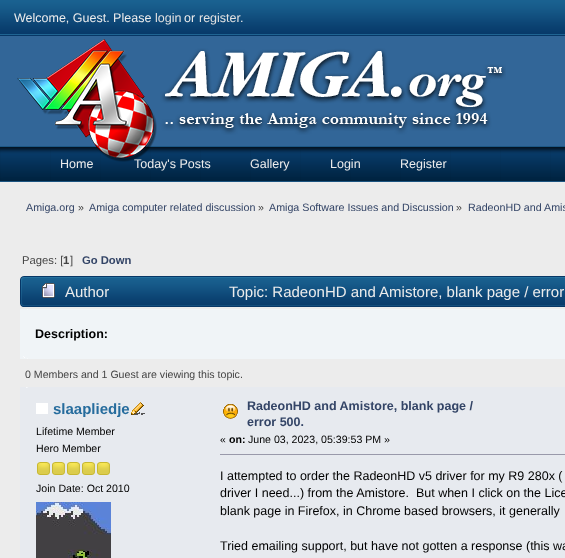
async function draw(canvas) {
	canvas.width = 565;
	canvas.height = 558;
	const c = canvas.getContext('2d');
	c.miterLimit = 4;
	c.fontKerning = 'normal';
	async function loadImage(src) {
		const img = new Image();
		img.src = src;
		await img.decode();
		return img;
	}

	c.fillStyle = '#fff';
	c.fillRect(0, 0, 565, 558);
	c.drawImage(await loadImage('img1.png'), 0, 0, 565, 36);
	c.font = '12.5px Liberation Sans';
	c.fillStyle = '#ececec';
	c.fillText('Welcome, Guest. Please', 14, 22);
	c.fillStyle = '#e1e1e1';
	c.fillText('login', 155, 22);
	c.fillStyle = '#ececec';
	c.fillText('or', 184, 22);
	c.fillStyle = '#e1e1e1';
	c.fillText('register', 199, 22);
	c.fillStyle = '#ececec';
	c.fillText('.', 240, 22);
	c.fillStyle = '#326698';
	c.fillRect(0, 36, 565, 110);
	c.drawImage(await loadImage('img3.png'), 0, 146, 565, 36);
	c.drawImage(await loadImage('img2.png'), 17, 39, 489, 123);
	c.fillStyle = '#ececec';
	for (const [text, x, y] of [
		['Home', 60, 168],
		['Today\'s Posts', 134, 168],
		['Gallery', 250, 168],
		['Login', 330, 168],
		['Register', 400, 168],
	]) {
		c.fillText(text, x, y);
	}
	c.fillStyle = '#00000033';
	c.filter = 'blur(5px)';
	c.beginPath();
	c.rect(0, 187, 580, 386);
	c.fill();
	c.filter = 'none';
	c.fillStyle = '#ececec';
	c.fillRect(0, 182, 565, 376);
	c.font = '10.7px Liberation Sans';
	c.fillStyle = '#346';
	c.fillText('Amiga.org', 26, 211);
	c.fillStyle = '#444';
	c.fillText('»', 78, 211);
	c.fillStyle = '#346';
	c.fillText('Amiga computer related discussion', 89, 211);
	c.fillStyle = '#444';
	c.fillText('»', 258, 211);
	c.fillStyle = '#346';
	c.fillText('Amiga Software Issues and Discussion', 269, 211);
	c.fillStyle = '#444';
	c.fillText('»', 456, 211);
	c.fillStyle = '#346';
	c.fillText('RadeonHD and Amis', 468, 211);
	c.font = '11.25px Liberation Sans';
	c.fillStyle = '#444';
	c.fillText('Pages: [', 22, 264);
	c.font = 'bold 11.25px Liberation Sans';
	c.fillText('1', 63, 264);
	c.font = '11.25px Liberation Sans';
	c.fillText(']', 70, 264);
	c.font = 'bold 11.25px Liberation Sans';
	c.fillStyle = '#346';
	c.fillText('Go Down', 82, 264);
	c.drawImage(await loadImage('img4.png'), 20, 276, 545, 31);
	c.drawImage(await loadImage('img5.png'), 42, 283, 13, 15);
	c.font = '15px Liberation Sans';
	c.fillStyle = '#ececec';
	c.fillText('Author', 65, 297);
	c.fillText('Topic: RadeonHD and Amistore, blank page / error', 229, 297);
	c.fillStyle = '#f0f4f7';
	c.fillRect(20, 309, 545, 50);
	c.fillStyle = '#f6f8fa';
	c.fillRect(27, 309, 1, 1);
	c.font = 'bold 12.5px Liberation Sans';
	c.fillStyle = '#000';
	c.fillText('Description:', 35, 338);
	c.drawImage(await loadImage('img6.png'), 23, 356, 5, 3);
	c.font = '10.6px Liberation Sans';
	c.fillStyle = '#444';
	c.fillText('0 Members and 1 Guest are viewing this topic.', 25, 378);
	c.fillStyle = '#e7eaef';
	c.fillRect(20, 387, 545, 171);
	c.drawImage(await loadImage('img7.png'), 26, 387, 2, 1);
	c.fillStyle = '#fff';
	c.fillRect(36, 403, 12, 11);
	c.font = 'bold 15px Liberation Sans';
	c.fillStyle = '#266c9d';
	c.fillText('slaapliedje', 53, 414);
	c.drawImage(await loadImage('img8.png'), 131, 402, 14, 13);
	c.font = '10.6px Liberation Sans';
	c.fillStyle = '#000';
	c.fillText('Lifetime Member', 36, 435);
	c.fillText('Hero Member', 36, 452);
	c.drawImage(await loadImage('img9.png'), 37, 462, 13, 13);
	c.drawImage(await loadImage('img9.png'), 52, 462, 13, 13);
	c.drawImage(await loadImage('img9.png'), 67, 462, 13, 13);
	c.drawImage(await loadImage('img9.png'), 82, 462, 13, 13);
	c.drawImage(await loadImage('img9.png'), 97, 462, 13, 13);
	c.fillText('Join Date: Oct 2010', 36, 492);
	c.drawImage(await loadImage('img10.png'), 36, 502, 75, 56);
	c.drawImage(await loadImage('img11.png'), 223, 404, 15, 15);
	c.font = 'bold 12.5px Liberation Sans';
	c.fillStyle = '#346';
	c.fillText('RadeonHD and Amistore, blank page /', 247, 410);
	c.fillText('error 500.', 247, 426);
	c.font = '10.6px Liberation Sans';
	c.fillStyle = '#000';
	c.fillText('«', 220, 443);
	c.font = 'bold 10.6px Liberation Sans';
	c.fillText('on:', 229, 443);
	c.font = '10.6px Liberation Sans';
	c.fillText('June 03, 2023, 05:39:53 PM »', 248, 443);
	c.fillStyle = '#99a';
	c.fillRect(220, 454, 345, 1);
	c.font = '12.5px Liberation Sans';
	c.fillStyle = '#000';
	for (const [text, x, y] of [
		['I attempted to order the RadeonHD v5 driver for my R9 280x (', 220, 480],
		['driver I need...) from the Amistore.  But when I click on the Lice', 220, 497],
		['blank page in Firefox, in Chrome based browsers, it generally', 220, 515],
		['Tried emailing support, but have not gotten a response (this wa', 220, 550],
	]) {
		c.fillText(text, x, y);
	}
}

draw(document.querySelector('canvas'));
